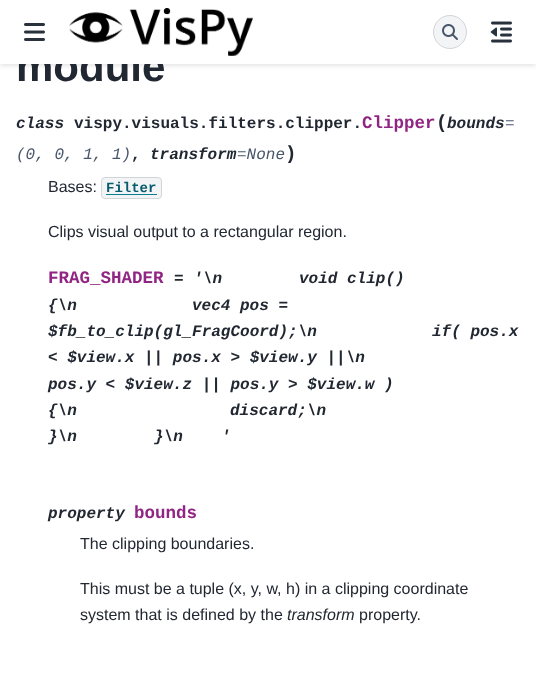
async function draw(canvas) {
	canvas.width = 536;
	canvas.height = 673;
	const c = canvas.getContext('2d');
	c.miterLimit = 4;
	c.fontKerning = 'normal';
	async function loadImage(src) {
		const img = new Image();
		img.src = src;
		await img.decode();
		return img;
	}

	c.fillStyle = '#fff';
	c.fillRect(0, 0, 536, 673);
	c.fillStyle = '#0000001a';
	c.filter = 'blur(2px)';
	c.beginPath();
	c.rect(0, 2, 536, 64);
	c.fill();
	c.filter = 'none';
	c.font = 'bold 42px Liberation Sans';
	c.fillStyle = '#222832';
	c.fillText('module', 16, 81);
	c.fillStyle = '#fff';
	c.fillRect(0, 0, 536, 64);
	c.drawImage(await loadImage('img1.png'), 24, 23, 21, 18);
	c.drawImage(await loadImage('img2.png'), 69, 8, 184, 48);
	c.fillStyle = '#f3f4f5';
	c.beginPath();
	c.arc(450, 32, 16.5, 0, 2 * Math.PI);
	c.fill();
	c.strokeStyle = '#d1d5da';
	c.stroke();
	c.drawImage(await loadImage('img3.png'), 442, 24, 16, 16);
	c.drawImage(await loadImage('img4.png'), 490, 21, 22, 22);
	c.font = 'italic bold 16px Liberation Mono';
	c.fillStyle = '#222832';
	c.fillText('class', 16, 128);
	c.font = 'bold 16px Liberation Mono';
	c.fillText('vispy.visuals.filters.clipper.', 74, 128);
	c.font = 'bold 17.5px Liberation Mono';
	c.fillStyle = '#912583';
	c.fillText('Clipper', 362, 128);
	c.font = 'bold 19px Liberation Mono';
	c.fillStyle = '#222832';
	c.fillText('(', 436, 128);
	c.font = 'italic bold 16px Liberation Mono';
	c.fillText('bounds', 447, 128);
	c.font = 'italic 16px Liberation Mono';
	c.fillStyle = '#48566b';
	c.fillText('=', 505, 128);
	c.fillText('(0, 0, 1, 1)', 16, 159);
	c.font = 'bold 16px Liberation Mono';
	c.fillStyle = '#222832';
	c.fillText(',', 131, 159);
	c.font = 'italic bold 16px Liberation Mono';
	c.fillText('transform', 150, 159);
	c.font = 'italic 16px Liberation Mono';
	c.fillStyle = '#48566b';
	c.fillText('=None', 237, 159);
	c.font = 'bold 19px Liberation Mono';
	c.fillStyle = '#222832';
	c.fillText(')', 285, 159);
	c.font = '16px Liberation Sans';
	c.fillText('Bases:', 48, 192);
	c.fillStyle = '#f3f4f5';
	c.beginPath();
	c.roundRect(101.5, 177.5, 60, 21, 3.5);
	c.fill();
	c.stroke();
	c.font = 'bold 14px Liberation Mono';
	c.fillStyle = '#085d6c';
	c.fillText('Filter', 106, 192);
	c.fillStyle = '#0a7d91';
	c.fillRect(106, 194, 51, 1);
	c.font = '16px Liberation Sans';
	c.fillStyle = '#222832';
	c.fillText('Clips visual output to a rectangular region.', 48, 237);
	c.font = 'bold 17.5px Liberation Mono';
	c.fillStyle = '#912583';
	c.fillText('FRAG_SHADER', 48, 283);
	c.font = 'italic bold 16px Liberation Mono';
	c.fillStyle = '#222832';
	for (const [text, x, y] of [
		['= \'\\n', 174, 283],
		['void clip()', 299, 283],
		['{\\n', 48, 310],
		['vec4 pos =', 192, 310],
		['$fb_to_clip(gl_FragCoord);\\n', 48, 336],
		['if( pos.x', 432, 336],
		['< $view.x || pos.x > $view.y ||\\n', 48, 362],
		['pos.y < $view.z || pos.y > $view.w )', 48, 389],
		['{\\n', 48, 415],
		['discard;\\n', 230, 415],
		['}\\n', 48, 441],
		['}\\n', 154, 441],
		['\'', 221, 441],
		['property', 48, 518],
	]) {
		c.fillText(text, x, y);
	}
	c.font = 'bold 17.5px Liberation Mono';
	c.fillStyle = '#912583';
	c.fillText('bounds', 134, 518);
	c.font = '16px Liberation Sans';
	c.fillStyle = '#222832';
	for (const [text, x, y] of [
		['The clipping boundaries.', 80, 549],
		['This must be a tuple (x, y, w, h) in a clipping coordinate', 80, 594],
		['system that is defined by the', 80, 620],
	]) {
		c.fillText(text, x, y);
	}
	c.font = 'italic 16px Liberation Sans';
	c.fillText('transform', 287, 620);
	c.font = '16px Liberation Sans';
	c.fillText('property.', 359, 620);
}

draw(document.querySelector('canvas'));
